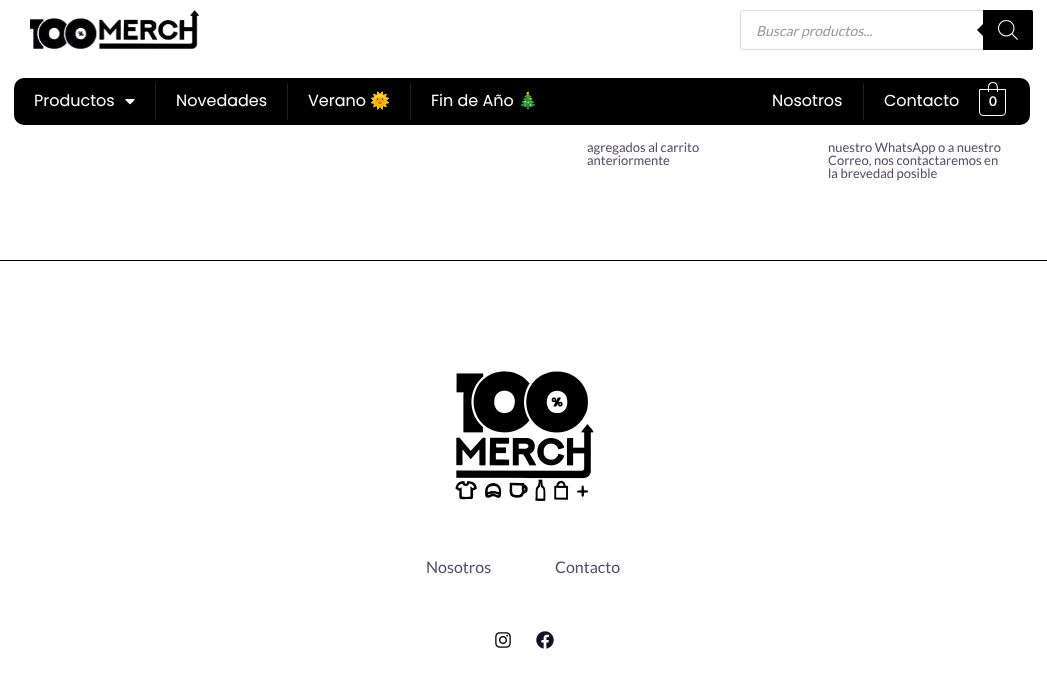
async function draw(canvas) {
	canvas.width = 1047;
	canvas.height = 673;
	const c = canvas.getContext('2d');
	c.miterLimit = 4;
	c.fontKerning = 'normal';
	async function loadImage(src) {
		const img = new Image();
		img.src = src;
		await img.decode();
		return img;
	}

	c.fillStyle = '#fff';
	c.fillRect(0, 0, 1047, 673);
	c.drawImage(await loadImage('img1.png'), 30, 10, 170, 39);
	c.beginPath();
	c.roundRect(740.5, 10.5, 292, 39, 2.5);
	c.strokeStyle = '#ddd';
	c.stroke();
	c.font = 'italic 14px Lato';
	c.fillStyle = '#999';
	c.fillText('Buscar productos...', 756, 36);
	c.fillStyle = '#000';
	c.beginPath();
	c.roundRect(983, 10, 50, 40, [0, 2, 2, 0]);
	c.fill();
	c.beginPath();
	c.moveTo(985, 22);
	c.lineTo(985, 38);
	c.lineTo(977, 30);
	c.closePath();
	c.fill();
	c.drawImage(await loadImage('img2.png'), 998, 20, 20, 20);
	c.beginPath();
	c.roundRect(14, 78, 716, 47, [10, 0, 0, 10]);
	c.fill();
	c.font = '16px Poppins';
	c.fillStyle = '#fff';
	c.fillText('Productos', 34, 106);
	c.drawImage(await loadImage('img3.png'), 125, 99, 10, 6);
	c.fillStyle = '#202020';
	c.fillRect(155, 83, 1, 37);
	c.fillStyle = '#fff';
	c.fillText('Novedades', 176, 106);
	c.fillStyle = '#202020';
	c.fillRect(287, 83, 1, 37);
	c.fillStyle = '#fff';
	c.fillText('Verano', 308, 106);
	c.font = '16px Noto Color Emoji';
	c.fillText('🌞', 370, 106);
	c.fillStyle = '#202020';
	c.fillRect(410, 83, 1, 37);
	c.font = '16px Poppins';
	c.fillStyle = '#fff';
	c.fillText('Fin de Año', 431, 106);
	c.font = '16px Noto Color Emoji';
	c.fillText('🎄', 518, 106);
	c.fillStyle = '#000';
	c.fillRect(730, 78, 249, 47);
	c.font = '16px Poppins';
	c.fillStyle = '#fff';
	c.fillText('Nosotros', 772, 106);
	c.fillStyle = '#202020';
	c.fillRect(863, 83, 1, 37);
	c.fillStyle = '#fff';
	c.fillText('Contacto', 884, 106);
	c.fillStyle = '#000';
	c.beginPath();
	c.roundRect(979, 78, 51, 47, [0, 10, 10, 0]);
	c.fill();
	c.beginPath();
	c.roundRect(979.5, 89.5, 26, 26, [0, 0, 3.5, 3.5]);
	c.strokeStyle = '#fff';
	c.stroke();
	c.fillStyle = '#fff';
	c.beginPath();
	c.moveTo(993, 82);
	c.bezierCurveTo(998.5, 82, 998, 88, 998, 92);
	c.lineTo(988, 92);
	c.bezierCurveTo(988, 88, 987, 82, 993, 82);
	c.closePath();
	c.moveTo(993, 83);
	c.bezierCurveTo(997.5, 83, 997, 89, 997, 92);
	c.lineTo(989, 92);
	c.bezierCurveTo(989, 89, 988, 83, 993, 83);
	c.closePath();
	c.fill('evenodd');
	c.font = 'bold 13px Lato';
	c.fillText('0', 989, 106);
	c.font = '13px Lato';
	c.fillStyle = '#584d66';
	for (const [text, x, y] of [
		['agregados al carrito', 587, 152],
		['anteriormente', 587, 165],
		['nuestro WhatsApp o a nuestro', 828, 152],
		['Correo, nos contactaremos en', 828, 165],
		['la brevedad posible', 828, 178],
	]) {
		c.fillText(text, x, y);
	}
	c.fillStyle = '#000';
	c.fillRect(0, 260, 1047, 1);
	c.drawImage(await loadImage('img4.png'), 455, 371, 139, 130);
	c.font = '16px Lato';
	c.fillStyle = '#584d66';
	c.fillText('Nosotros', 426, 573);
	c.fillText('Contacto', 555, 573);
	c.drawImage(await loadImage('img5.png'), 495, 632, 16, 16);
	c.drawImage(await loadImage('img6.png'), 536, 631, 18, 18);
}

draw(document.querySelector('canvas'));
